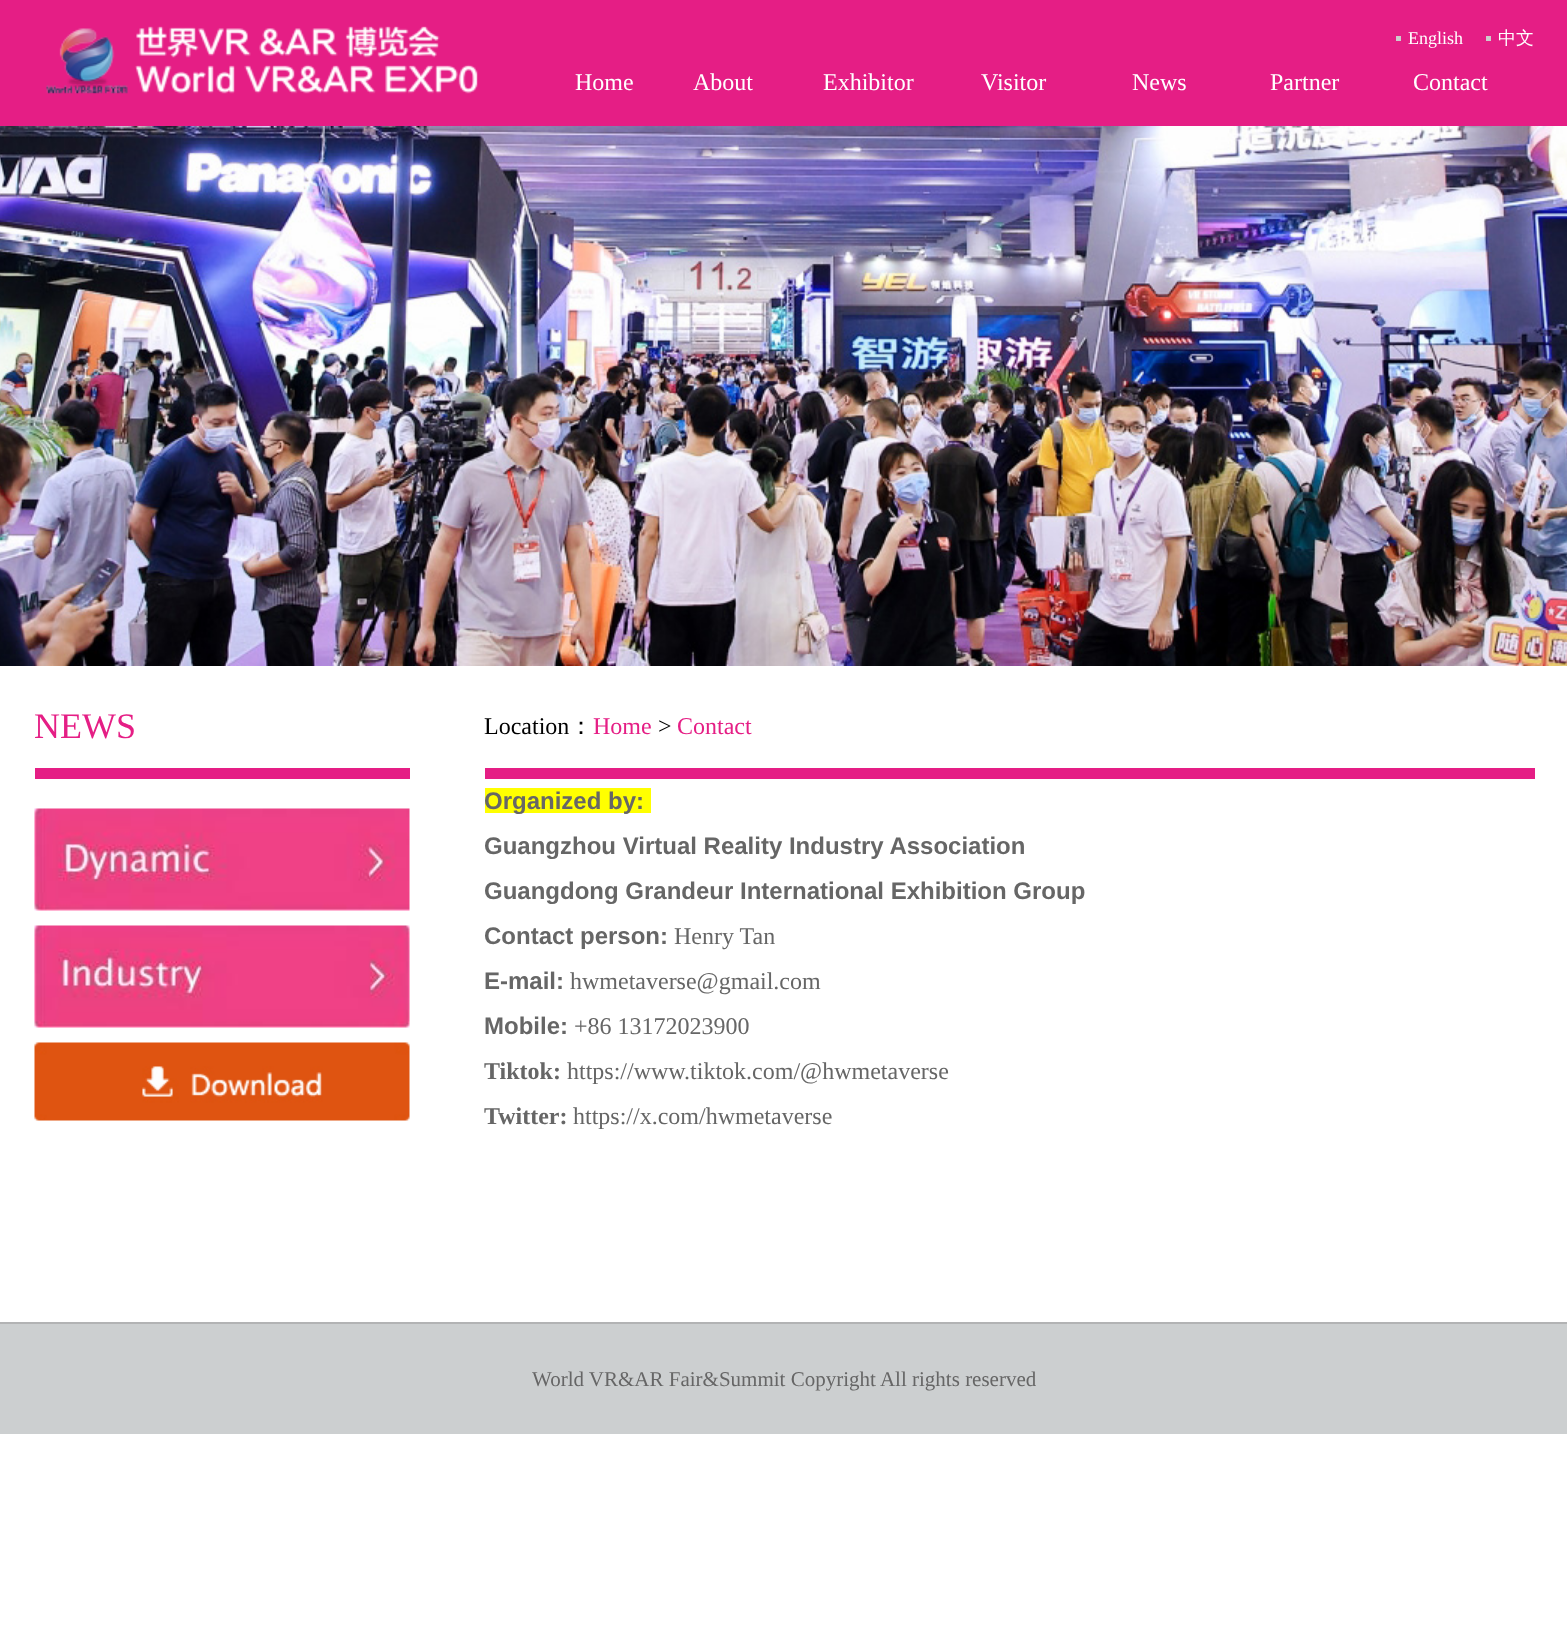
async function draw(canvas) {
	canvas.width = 1567;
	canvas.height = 1628;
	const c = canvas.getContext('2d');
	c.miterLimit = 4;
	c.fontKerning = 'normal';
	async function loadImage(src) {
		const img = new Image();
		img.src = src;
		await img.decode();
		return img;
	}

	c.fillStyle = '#fff';
	c.fillRect(0, 0, 1567, 1628);
	c.fillStyle = '#e51e85';
	c.fillRect(0, 0, 1567, 126);
	c.drawImage(await loadImage('img1.png'), 46, 26, 432, 68);
	c.fillStyle = '#ccc';
	c.fillRect(1396, 36, 5, 5);
	c.font = '18px Liberation Serif';
	c.fillStyle = '#fff';
	c.fillText('English', 1408, 44);
	c.fillStyle = '#ccc';
	c.fillRect(1486, 36, 5, 5);
	c.font = '500 18px WenQuanYi Zen Hei';
	c.fillStyle = '#fff';
	c.fillText('中文', 1498, 44);
	c.font = '24px Liberation Serif';
	for (const [text, x, y] of [
		['Home', 575, 90],
		['About', 693, 90],
		['Exhibitor', 823, 90],
		['Visitor', 981, 90],
		['News', 1132, 90],
		['Partner', 1270, 90],
		['Contact', 1413, 90],
	]) {
		c.fillText(text, x, y);
	}
	c.drawImage(await loadImage('img2.png'), 0, 126, 1567, 540);
	c.font = '36px Liberation Serif';
	c.fillStyle = '#e51e85';
	c.fillText('NEWS', 34, 738);
	c.fillRect(35, 768, 375, 11);
	c.drawImage(await loadImage('img3.png'), 34, 808, 376, 103);
	c.drawImage(await loadImage('img4.png'), 34, 925, 376, 103);
	c.drawImage(await loadImage('img5.png'), 34, 1042, 376, 79);
	c.font = '24px Liberation Serif';
	c.fillStyle = '#000';
	c.fillText('Location', 484, 734);
	c.font = '500 24px WenQuanYi Zen Hei';
	c.fillText('：', 569, 734);
	c.font = '24px Liberation Serif';
	c.fillStyle = '#e51e85';
	c.fillText('Home', 593, 734);
	c.fillStyle = '#000';
	c.fillText('>', 658, 734);
	c.fillStyle = '#e51e85';
	c.fillText('Contact', 677, 734);
	c.fillRect(485, 768, 1050, 11);
	c.fillStyle = '#ff0';
	c.fillRect(485, 788, 166, 25);
	c.font = 'bold 24px Liberation Sans';
	c.fillStyle = '#666';
	for (const [text, x, y] of [
		['Organized by:', 484, 809],
		['Guangzhou Virtual Reality Industry Association', 484, 854],
		['Guangdong Grandeur International Exhibition Group', 484, 899],
		['Contact person:', 484, 944],
	]) {
		c.fillText(text, x, y);
	}
	c.font = '24px Liberation Serif';
	c.fillText('Henry Tan', 674, 944);
	c.font = 'bold 24px Liberation Sans';
	c.fillText('E-mail:', 484, 989);
	c.font = '24px Liberation Serif';
	c.fillText('hwmetaverse@gmail.com', 570, 989);
	c.font = 'bold 24px Liberation Sans';
	c.fillText('Mobile:', 484, 1034);
	c.font = '24px Liberation Serif';
	c.fillText('+86 13172023900', 574, 1034);
	c.font = 'bold 24px Liberation Serif';
	c.fillText('Tiktok:', 484, 1079);
	c.font = '24px Liberation Serif';
	c.fillText('https://www.tiktok.com/@hwmetaverse', 567, 1079);
	c.font = 'bold 24px Liberation Serif';
	c.fillText('Twitter:', 484, 1124);
	c.font = '24px Liberation Serif';
	c.fillText('https://x.com/hwmetaverse', 573, 1124);
	c.fillStyle = '#cccfd0';
	c.fillRect(0, 1324, 1567, 110);
	c.fillStyle = '#b2b3b4';
	c.fillRect(0, 1322, 1567, 2);
	c.font = '21px Liberation Serif';
	c.fillStyle = '#666';
	c.fillText('World VR&AR Fair&Summit Copyright All rights reserved', 532, 1386);
}

draw(document.querySelector('canvas'));
